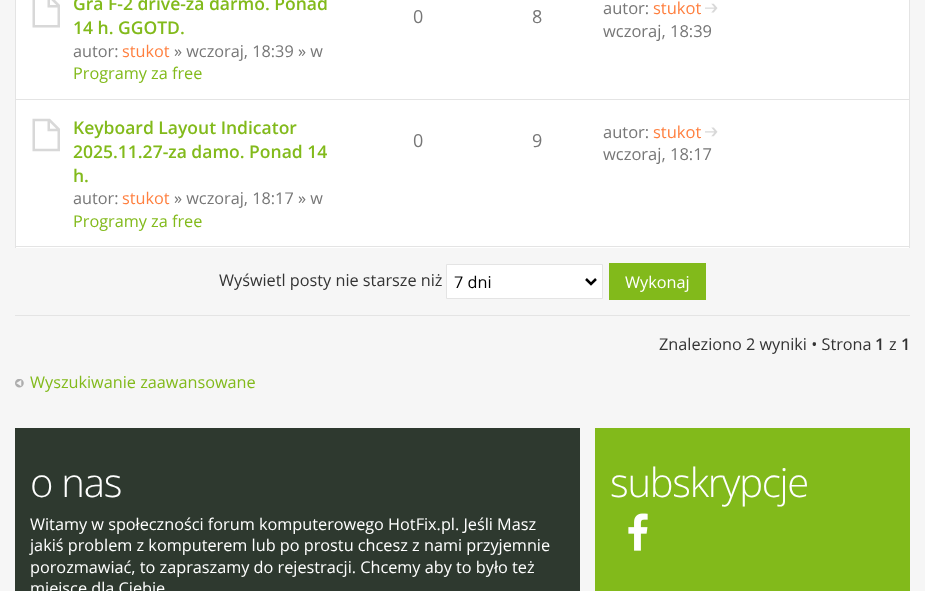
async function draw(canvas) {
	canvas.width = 925;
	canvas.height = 591;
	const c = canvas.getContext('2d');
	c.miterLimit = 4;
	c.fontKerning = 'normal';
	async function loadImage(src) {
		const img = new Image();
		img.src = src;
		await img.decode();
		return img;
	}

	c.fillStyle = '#f6f6f6';
	c.fillRect(0, 0, 925, 591);
	for (const [x, y, w, h, color] of [
		[16, 0, 893, 99, '#fff'],
		[909, 0, 1, 248, '#e4e4e4'],
		[15, 99, 895, 1, '#e4e4e4'],
		[15, 0, 1, 100, '#e4e4e4'],
	]) {
		c.fillStyle = color;
		c.fillRect(x, y, w, h);
	}
	c.drawImage(await loadImage('img1.png'), 32, 0, 28, 28);
	c.font = '600 17.5px Open Sans';
	c.fillStyle = '#82ba1b';
	c.fillText('Gra F-2 drive-za darmo. Ponad', 73, 10);
	c.fillText('14 h. GGOTD.', 73, 34);
	c.font = '16.25px Open Sans';
	c.fillStyle = '#777';
	c.fillText('autor:', 73, 57);
	c.fillStyle = '#ff8040';
	c.fillText('stukot', 122, 57);
	c.fillStyle = '#777';
	c.fillText('» wczoraj, 18:39 » w', 174, 57);
	c.fillStyle = '#82ba1b';
	c.fillText('Programy za free', 73, 79);
	c.font = '18px Open Sans';
	c.fillStyle = '#777';
	c.fillText('0', 413, 23);
	c.fillText('8', 532, 23);
	c.font = '16.5px Open Sans';
	c.fillText('autor:', 603, 14);
	c.fillStyle = '#ff8040';
	c.fillText('stukot', 653, 14);
	c.drawImage(await loadImage('img2.png'), 705, 3, 13, 10);
	c.fillStyle = '#777';
	c.fillText('wczoraj, 18:39', 603, 37);
	for (const [x, y, w, h, color] of [
		[16, 100, 893, 148, '#fff'],
		[15, 246, 895, 1, '#e4e4e4'],
		[15, 100, 1, 148, '#e4e4e4'],
	]) {
		c.fillStyle = color;
		c.fillRect(x, y, w, h);
	}
	c.drawImage(await loadImage('img3.png'), 32, 118, 28, 34);
	c.font = '600 17.5px Open Sans';
	c.fillStyle = '#82ba1b';
	for (const [text, x, y] of [
		['Keyboard Layout Indicator', 73, 134],
		['2025.11.27-za damo. Ponad 14', 73, 158],
		['h.', 73, 182],
	]) {
		c.fillText(text, x, y);
	}
	c.font = '16.25px Open Sans';
	c.fillStyle = '#777';
	c.fillText('autor:', 73, 204);
	c.fillStyle = '#ff8040';
	c.fillText('stukot', 122, 204);
	c.fillStyle = '#777';
	c.fillText('» wczoraj, 18:17 » w', 174, 204);
	c.fillStyle = '#82ba1b';
	c.fillText('Programy za free', 73, 227);
	c.font = '18px Open Sans';
	c.fillStyle = '#777';
	c.fillText('0', 413, 147);
	c.fillText('9', 532, 147);
	c.font = '16.5px Open Sans';
	c.fillText('autor:', 603, 138);
	c.fillStyle = '#ff8040';
	c.fillText('stukot', 653, 138);
	c.drawImage(await loadImage('img4.png'), 705, 127, 13, 10);
	c.fillStyle = '#777';
	c.fillText('wczoraj, 18:17', 603, 160);
	c.font = '16.25px Open Sans';
	c.fillStyle = '#333';
	c.fillText('Wyświetl posty nie starsze niż', 219, 286);
	c.fillStyle = '#fff';
	c.beginPath();
	c.rect(446.5, 264.5, 156, 34);
	c.fill();
	c.strokeStyle = '#e4e4e4';
	c.stroke();
	c.beginPath();
	c.moveTo(586, 279);
	c.lineTo(591, 284);
	c.lineTo(596, 279);
	c.strokeStyle = '#000';
	c.lineWidth = 2.5;
	c.stroke();
	c.fillStyle = '#000';
	c.fillText('7 dni', 454, 288);
	c.fillStyle = '#82ba1b';
	c.fillRect(609, 263, 97, 37);
	c.fillStyle = '#fff';
	c.fillText('Wykonaj', 625, 288);
	c.fillStyle = '#e4e4e4';
	c.fillRect(15, 315, 895, 1);
	c.fillStyle = '#333';
	c.fillText('Znaleziono 2 wyniki • Strona', 659, 350);
	c.font = '600 16.25px Open Sans';
	c.fillText('1', 875, 350);
	c.font = '16.25px Open Sans';
	c.fillText('z', 889, 350);
	c.font = '600 16.25px Open Sans';
	c.fillText('1', 901, 350);
	c.drawImage(await loadImage('img5.png'), 15, 379, 9, 9);
	c.font = '16.25px Open Sans';
	c.fillStyle = '#82ba1b';
	c.fillText('Wyszukiwanie zaawansowane', 30, 388);
	c.fillRect(595, 428, 315, 163);
	c.fillStyle = '#2e392f';
	c.fillRect(15, 428, 565, 163);
	c.letterSpacing = '-1.25px';
	c.font = '300 40px Open Sans';
	c.fillStyle = '#fff';
	c.fillText('o nas', 30, 497);
	c.letterSpacing = '0px';
	c.font = '16.25px Open Sans';
	for (const [text, x, y] of [
		['Witamy w społeczności forum komputerowego HotFix.pl. Jeśli Masz', 30, 530],
		['jakiś problem z komputerem lub po prostu chcesz z nami przyjemnie', 30, 551],
		['porozmawiać, to zapraszamy do rejestracji. Chcemy aby to było też', 30, 573],
		['miejsce dla Ciebie', 30, 594],
	]) {
		c.fillText(text, x, y);
	}
	c.letterSpacing = '-1.25px';
	c.font = '300 40px Open Sans';
	c.fillText('subskrypcje', 610, 497);
	c.drawImage(await loadImage('img6.png'), 628, 513, 20, 38);
}

draw(document.querySelector('canvas'));
